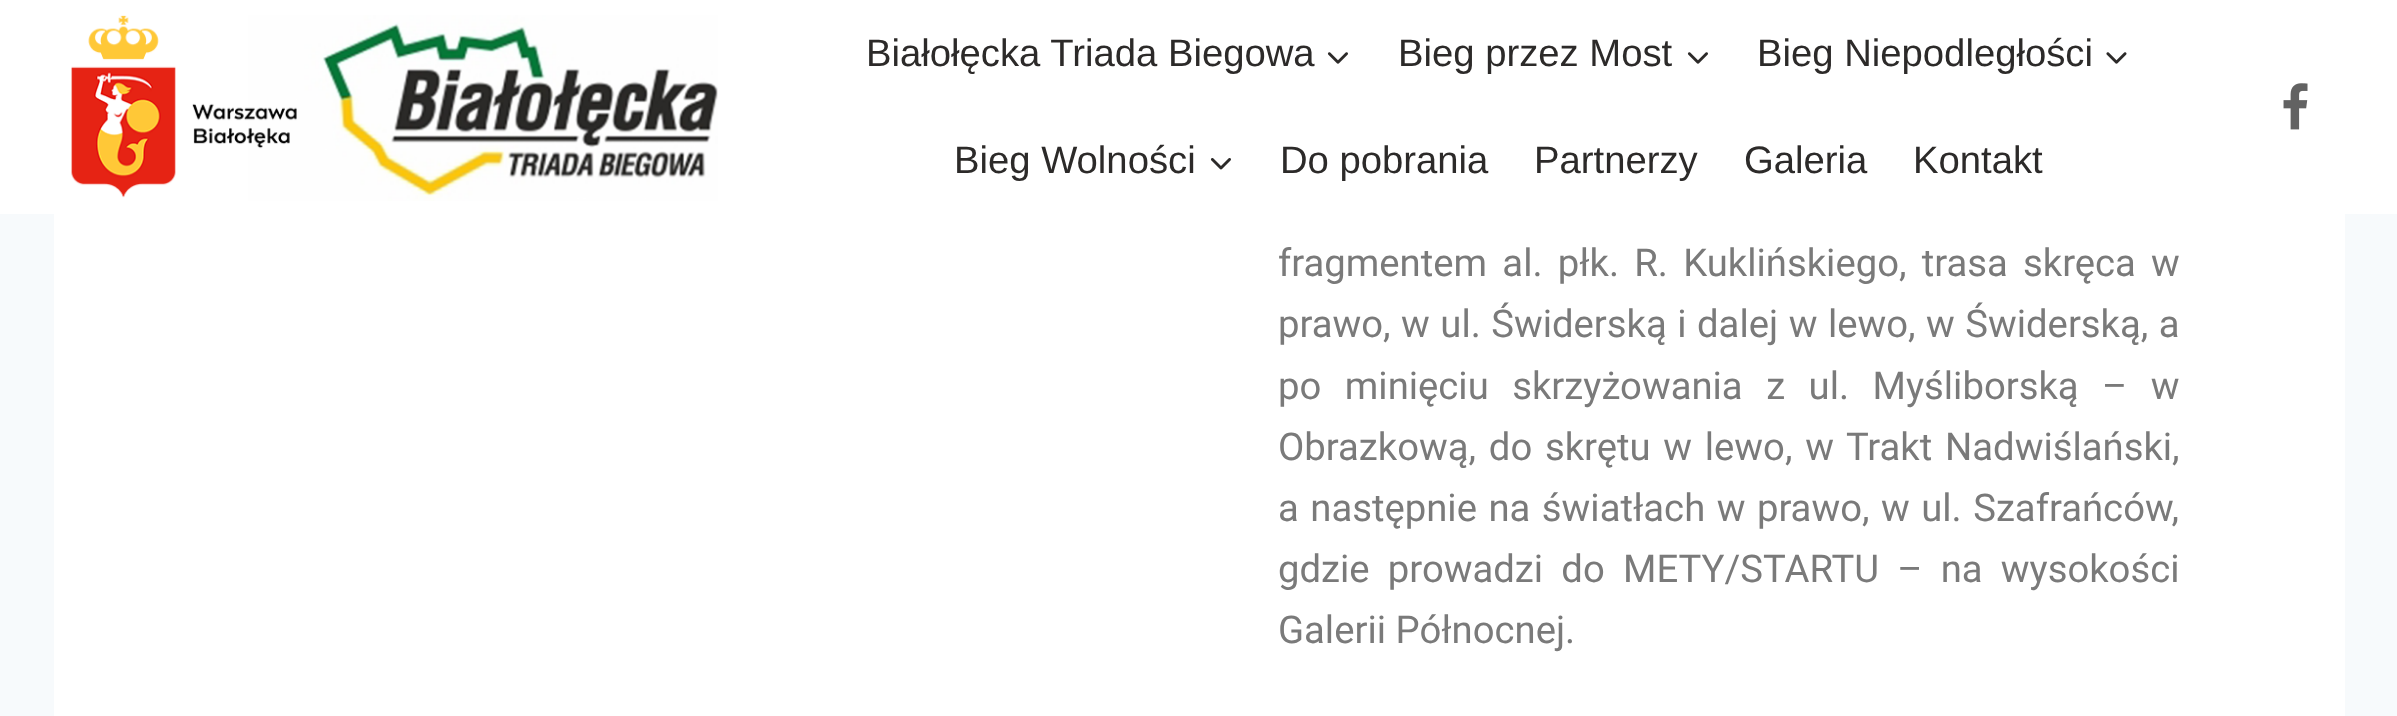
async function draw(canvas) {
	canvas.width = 2397;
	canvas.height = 716;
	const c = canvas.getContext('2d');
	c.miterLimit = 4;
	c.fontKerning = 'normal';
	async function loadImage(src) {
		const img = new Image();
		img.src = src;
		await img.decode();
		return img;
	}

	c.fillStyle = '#f7fafc';
	c.fillRect(0, 0, 2397, 716);
	c.fillStyle = '#fff';
	c.fillRect(0, 0, 2397, 214);
	c.drawImage(await loadImage('img1.png'), 71, 15, 647, 186);
	c.font = '38.25px Liberation Sans';
	c.fillStyle = '#2c2a29';
	c.fillText('Białołęcka Triada Biegowa', 866, 66);
	c.drawImage(await loadImage('img2.png'), 1327, 52, 21, 12);
	c.fillText('Bieg przez Most', 1398, 66);
	c.drawImage(await loadImage('img2.png'), 1687, 52, 21, 12);
	c.fillText('Bieg Niepodległości', 1757, 66);
	c.drawImage(await loadImage('img3.png'), 2106, 52, 21, 12);
	c.fillText('Bieg Wolności', 954, 173);
	c.drawImage(await loadImage('img4.png'), 1210, 158, 21, 12);
	for (const [text, x, y] of [
		['Do pobrania', 1280, 173],
		['Partnerzy', 1534, 173],
		['Galeria', 1744, 173],
		['Kontakt', 1913, 173],
	]) {
		c.fillText(text, x, y);
	}
	c.drawImage(await loadImage('img5.png'), 2283, 83, 25, 47);
	c.fillStyle = '#fff';
	c.fillRect(54, 214, 2291, 502);
	c.wordSpacing = '5.75px';
	c.font = '38.25px Roboto';
	c.fillStyle = '#7a7a7a';
	c.fillText('fragmentem al. płk. R. Kuklińskiego, trasa skręca w', 1278, 276);
	c.wordSpacing = '1px';
	c.fillText('prawo, w ul. Świderską i dalej w lewo, w Świderską, a', 1278, 337);
	c.wordSpacing = '14px';
	c.fillText('po minięciu skrzyżowania z ul. Myśliborską – w', 1278, 399);
	c.wordSpacing = '3.25px';
	c.fillText('Obrazkową, do skrętu w lewo, w Trakt Nadwiślański,', 1278, 460);
	c.wordSpacing = '2px';
	c.fillText('a następnie na światłach w prawo, w ul. Szafrańców,', 1278, 521);
	c.wordSpacing = '8.75px';
	c.fillText('gdzie prowadzi do METY/STARTU – na wysokości', 1278, 582);
	c.wordSpacing = '0px';
	c.fillText('Galerii Północnej.', 1278, 643);
}

draw(document.querySelector('canvas'));
